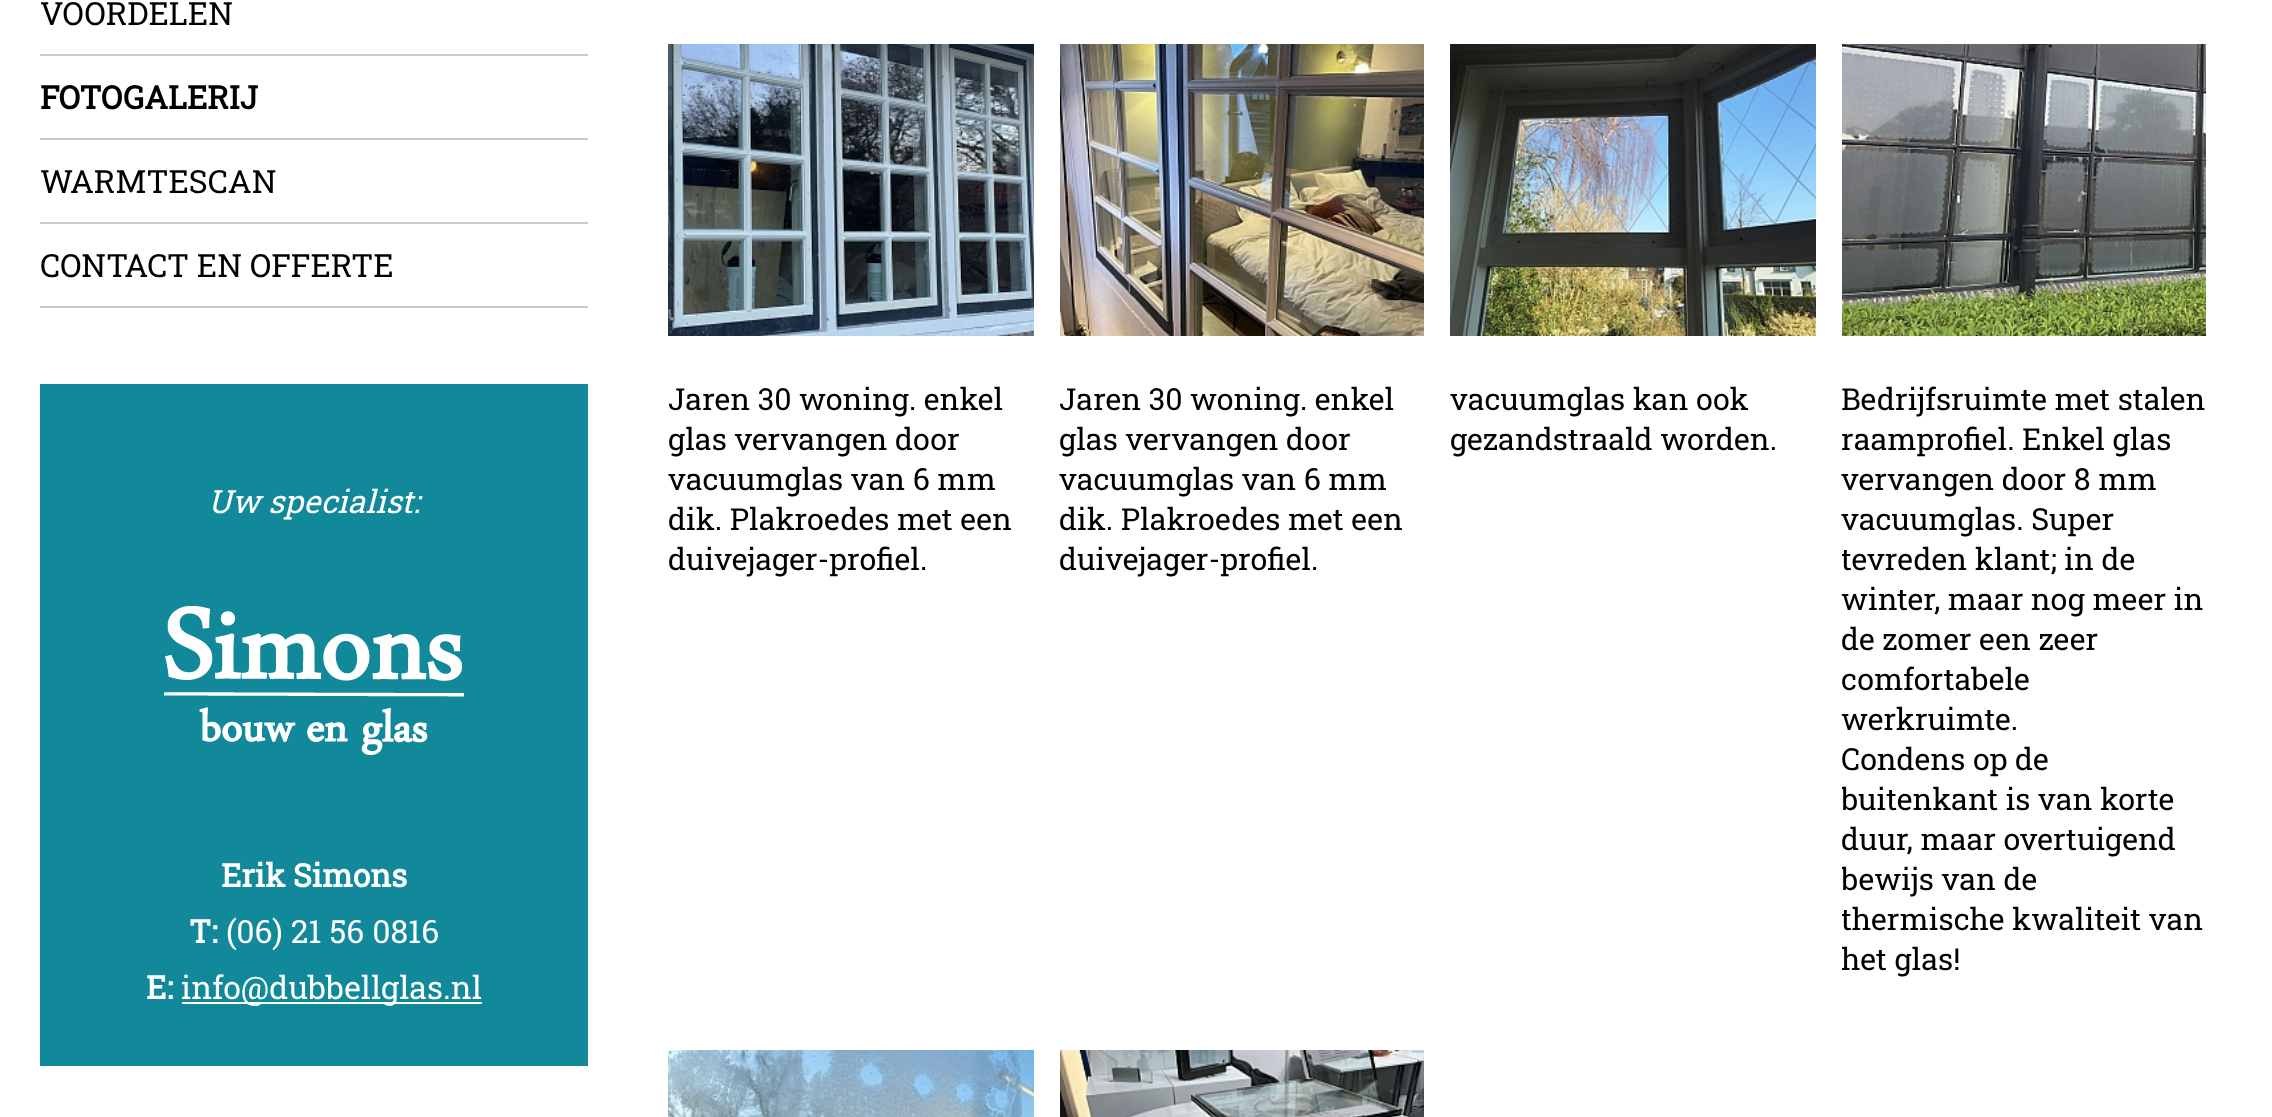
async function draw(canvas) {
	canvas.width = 2272;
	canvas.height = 1117;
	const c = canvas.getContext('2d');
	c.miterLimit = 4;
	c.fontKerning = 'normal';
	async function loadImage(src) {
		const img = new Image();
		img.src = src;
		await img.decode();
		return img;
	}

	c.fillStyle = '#fff';
	c.fillRect(0, 0, 2272, 1117);
	c.fillStyle = '#ccc';
	c.fillRect(40, 54, 548, 2);
	c.font = '32px Roboto Slab';
	c.fillStyle = '#000';
	c.fillText('VOORDELEN', 40, 25);
	c.fillStyle = '#ccc';
	c.fillRect(40, 138, 548, 2);
	c.font = 'bold 32px Roboto Slab';
	c.fillStyle = '#000';
	c.fillText('FOTOGALERIJ', 40, 109);
	c.fillStyle = '#ccc';
	c.fillRect(40, 222, 548, 2);
	c.font = '32px Roboto Slab';
	c.fillStyle = '#000';
	c.fillText('WARMTESCAN', 40, 193);
	c.fillStyle = '#ccc';
	c.fillRect(40, 306, 548, 2);
	c.fillStyle = '#000';
	c.fillText('CONTACT EN OFFERTE', 40, 277);
	c.fillStyle = '#12889b';
	c.fillRect(40, 384, 548, 682);
	c.font = 'italic 32px Roboto Slab';
	c.fillStyle = '#fff';
	c.fillText('Uw specialist:', 208, 513);
	c.drawImage(await loadImage('img1.png'), 164, 606, 300, 149);
	c.font = 'bold 32px Roboto Slab';
	c.fillText('Erik Simons', 221, 887);
	c.fillText('T:', 189, 943);
	c.font = '32px Roboto Slab';
	c.fillText('(06) 21 56 0816', 226, 943);
	c.font = 'bold 32px Roboto Slab';
	c.fillText('E:', 146, 999);
	c.fillRect(182, 1002, 300, 2);
	c.font = '32px Roboto Slab';
	c.fillText('info@dubbellglas.nl', 181, 999);
	c.drawImage(await loadImage('img2.png'), 668, 44, 366, 292);
	c.font = '30.4px Roboto Slab';
	c.fillStyle = '#000';
	for (const [text, x, y] of [
		['Jaren 30 woning. enkel', 668, 410],
		['glas vervangen door', 668, 450],
		['vacuumglas van 6 mm', 668, 490],
		['dik. Plakroedes met een', 668, 530],
		['duivejager-profiel.', 668, 570],
	]) {
		c.fillText(text, x, y);
	}
	c.drawImage(await loadImage('img3.png'), 1060, 44, 364, 292);
	for (const [text, x, y] of [
		['Jaren 30 woning. enkel', 1059, 410],
		['glas vervangen door', 1059, 450],
		['vacuumglas van 6 mm', 1059, 490],
		['dik. Plakroedes met een', 1059, 530],
		['duivejager-profiel.', 1059, 570],
	]) {
		c.fillText(text, x, y);
	}
	c.drawImage(await loadImage('img4.png'), 1450, 44, 366, 292);
	c.fillText('vacuumglas kan ook', 1450, 410);
	c.fillText('gezandstraald worden.', 1450, 450);
	c.drawImage(await loadImage('img5.png'), 1842, 44, 364, 292);
	for (const [text, x, y] of [
		['Bedrijfsruimte met stalen', 1841, 410],
		['raamprofiel. Enkel glas', 1841, 450],
		['vervangen door 8 mm', 1841, 490],
		['vacuumglas. Super', 1841, 530],
	]) {
		c.fillText(text, x, y);
	}
	c.save();
	c.beginPath();
	c.rect(1842, 8, 364, 994);
	c.clip();
	c.fillText('tevreden klant; in de', 1841, 570);
	c.restore();
	for (const [text, x, y] of [
		['winter, maar nog meer in', 1841, 610],
		['de zomer een zeer', 1841, 650],
		['comfortabele', 1841, 690],
		['werkruimte.', 1841, 730],
		['Condens op de', 1841, 770],
	]) {
		c.fillText(text, x, y);
	}
	c.save();
	c.beginPath();
	c.rect(1842, 8, 364, 994);
	c.clip();
	c.fillText('buitenkant is van korte', 1841, 810);
	c.restore();
	c.fillText('duur, maar overtuigend', 1841, 850);
	c.save();
	c.beginPath();
	c.rect(1842, 8, 364, 994);
	c.clip();
	for (const [text, x, y] of [
		['bewijs van de', 1841, 890],
		['thermische kwaliteit van', 1841, 930],
		['het glas!', 1841, 970],
	]) {
		c.fillText(text, x, y);
	}
	c.restore();
	c.drawImage(await loadImage('img6.png'), 668, 1050, 366, 67);
	c.drawImage(await loadImage('img7.png'), 1060, 1050, 364, 67);
}

draw(document.querySelector('canvas'));
